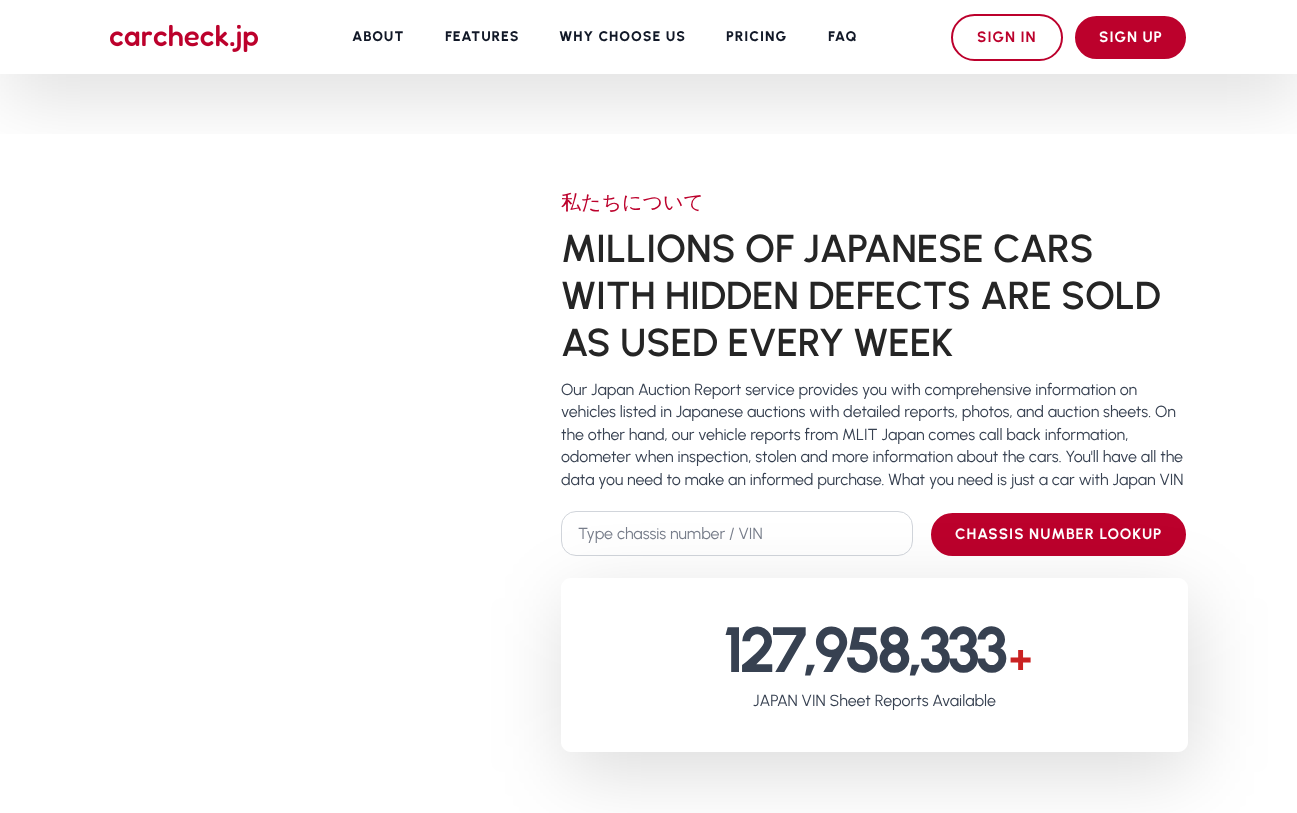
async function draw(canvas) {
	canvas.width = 1297;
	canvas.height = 813;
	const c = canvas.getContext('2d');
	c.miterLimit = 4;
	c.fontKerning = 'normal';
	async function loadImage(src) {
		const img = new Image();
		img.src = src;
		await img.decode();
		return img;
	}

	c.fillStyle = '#fff';
	c.fillRect(0, 0, 1297, 813);
	c.save();
	c.beginPath();
	c.rect(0, 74, 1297, 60);
	c.clip();
	c.fillStyle = '#00000024';
	c.filter = 'blur(37.5px)';
	c.beginPath();
	c.rect(5, 20, 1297, 74);
	c.fill();
	c.filter = 'none';
	c.restore();
	c.drawImage(await loadImage('img1.png'), 110, 24, 148, 28);
	c.letterSpacing = '1px';
	c.font = '800 14px Urbanist';
	c.fillStyle = '#111827';
	for (const [text, x, y] of [
		['ABOUT', 352, 41],
		['FEATURES', 445, 41],
		['WHY CHOOSE US', 559, 41],
		['PRICING', 726, 41],
		['FAQ', 828, 41],
	]) {
		c.fillText(text, x, y);
	}
	c.beginPath();
	c.roundRect(952, 15, 110, 45, 22.5);
	c.strokeStyle = '#bc002c';
	c.lineWidth = 2;
	c.stroke();
	c.font = 'bold 15px Urbanist';
	c.fillStyle = '#bc012c';
	c.fillText('SIGN IN', 977, 42);
	c.beginPath();
	c.roundRect(1074, 15, 113, 45, 22.5);
	c.fill();
	c.strokeStyle = '#fff';
	c.stroke();
	c.fillStyle = '#fff';
	c.fillText('SIGN UP', 1099, 42);
	c.letterSpacing = '0px';
	c.font = '500 20px WenQuanYi Zen Hei';
	c.fillStyle = '#bc012c';
	c.fillText('私たちについて', 561, 209);
	c.font = '600 39px Urbanist';
	c.fillStyle = '#252525';
	for (const [text, x, y] of [
		['MILLIONS OF JAPANESE CARS', 561, 262],
		['WITH HIDDEN DEFECTS ARE SOLD', 561, 309],
		['AS USED EVERY WEEK', 561, 356],
	]) {
		c.fillText(text, x, y);
	}
	c.font = '16px Urbanist';
	c.fillStyle = '#374151';
	for (const [text, x, y] of [
		['Our Japan Auction Report service provides you with comprehensive information on', 561, 395],
		['vehicles listed in Japanese auctions with detailed reports, photos, and auction sheets. On', 561, 417],
		['the other hand, our vehicle reports from MLIT Japan comes call back information,', 561, 440],
		['odometer when inspection, stolen and more information about the cars. You\'ll have all the', 561, 462],
		['data you need to make an informed purchase. What you need is just a car with Japan VIN', 561, 485],
	]) {
		c.fillText(text, x, y);
	}
	c.beginPath();
	c.roundRect(561.5, 511.5, 351, 44, 14.5);
	c.strokeStyle = '#d1d5db';
	c.lineWidth = 1;
	c.stroke();
	c.fillStyle = '#787e8b';
	c.fillText('Type chassis number / VIN', 578, 539);
	c.fillStyle = '#bc012c';
	c.beginPath();
	c.roundRect(930, 512, 257, 45, 22.5);
	c.fill();
	c.strokeStyle = '#fff';
	c.lineWidth = 2;
	c.stroke();
	c.letterSpacing = '1px';
	c.font = 'bold 15px Urbanist';
	c.fillStyle = '#fff';
	c.fillText('CHASSIS NUMBER LOOKUP', 955, 539);
	c.save();
	c.beginPath();
	c.moveTo(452, 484);
	c.lineTo(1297, 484);
	c.lineTo(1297, 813);
	c.lineTo(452, 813);
	c.closePath();
	c.moveTo(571, 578);
	c.lineTo(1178, 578);
	c.bezierCurveTo(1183.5, 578, 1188, 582.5, 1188, 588);
	c.lineTo(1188, 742);
	c.bezierCurveTo(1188, 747.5, 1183.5, 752, 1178, 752);
	c.lineTo(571, 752);
	c.bezierCurveTo(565.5, 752, 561, 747.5, 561, 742);
	c.lineTo(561, 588);
	c.bezierCurveTo(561, 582.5, 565.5, 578, 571, 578);
	c.closePath();
	c.clip('evenodd');
	c.fillStyle = '#00000024';
	c.filter = 'blur(37.5px)';
	c.beginPath();
	c.roundRect(566, 598, 627, 174, 10);
	c.fill();
	c.filter = 'none';
	c.restore();
	c.letterSpacing = '-4.5px';
	c.font = 'bold 64px Urbanist';
	c.fillStyle = '#374151';
	c.fillText('127,958,333', 723, 672);
	c.letterSpacing = '0px';
	c.font = 'bold 40px Urbanist';
	c.fillStyle = '#ca2222';
	c.fillText('+', 1009, 672);
	c.font = '16px Urbanist';
	c.fillStyle = '#374151';
	c.fillText('JAPAN VIN Sheet Reports Available', 753, 706);
}

draw(document.querySelector('canvas'));
